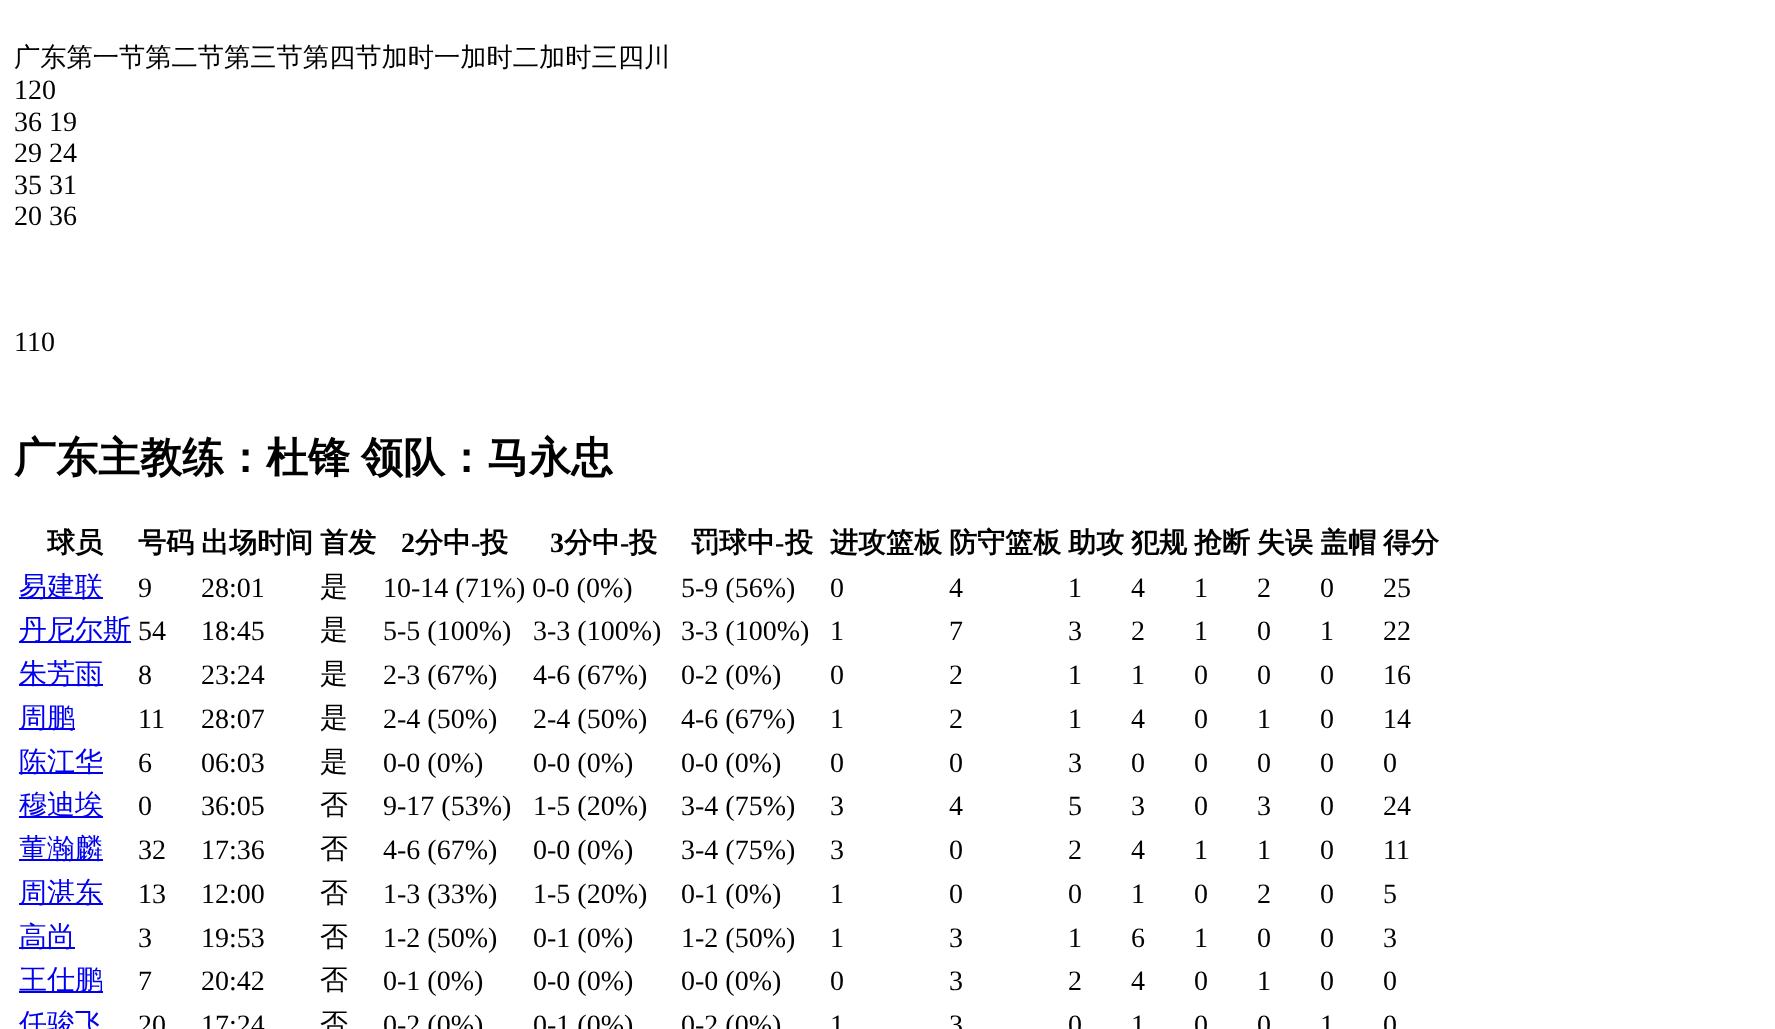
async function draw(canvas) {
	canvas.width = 1775;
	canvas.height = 1029;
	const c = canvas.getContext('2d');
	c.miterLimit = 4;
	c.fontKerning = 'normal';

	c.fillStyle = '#fff';
	c.fillRect(0, 0, 1775, 1029);
	c.font = '500 26.25px WenQuanYi Zen Hei';
	c.fillStyle = '#000';
	c.fillText('广东第一节第二节第三节第四节加时一加时二加时三四川', 14, 66);
	c.font = '28px Liberation Serif';
	for (const [text, x, y] of [
		['120', 14, 99],
		['36 19', 14, 131],
		['29 24', 14, 162],
		['35 31', 14, 194],
		['20 36', 14, 225],
		['110', 14, 351],
	]) {
		c.fillText(text, x, y);
	}
	c.font = 'bold 42px WenQuanYi Zen Hei';
	c.fillText('广东主教练：杜锋', 14, 472);
	c.fillText('领队：马永忠', 361, 472);
	c.font = 'bold 28px WenQuanYi Zen Hei';
	for (const [text, x, y] of [
		['球员', 47, 552],
		['号码', 138, 552],
		['出场时间', 201, 552],
		['首发', 320, 552],
	]) {
		c.fillText(text, x, y);
	}
	c.font = 'bold 28px Liberation Serif';
	c.fillText('2', 401, 552);
	c.font = 'bold 28px WenQuanYi Zen Hei';
	c.fillText('分中', 415, 552);
	c.font = 'bold 28px Liberation Serif';
	c.fillText('-', 471, 552);
	c.font = 'bold 28px WenQuanYi Zen Hei';
	c.fillText('投', 480, 552);
	c.font = 'bold 28px Liberation Serif';
	c.fillText('3', 550, 552);
	c.font = 'bold 28px WenQuanYi Zen Hei';
	c.fillText('分中', 564, 552);
	c.font = 'bold 28px Liberation Serif';
	c.fillText('-', 620, 552);
	c.font = 'bold 28px WenQuanYi Zen Hei';
	c.fillText('投', 629, 552);
	c.fillText('罚球中', 691, 552);
	c.font = 'bold 28px Liberation Serif';
	c.fillText('-', 775, 552);
	c.font = 'bold 28px WenQuanYi Zen Hei';
	for (const [text, x, y] of [
		['投', 785, 552],
		['进攻篮板', 830, 552],
		['防守篮板', 949, 552],
		['助攻', 1068, 552],
		['犯规', 1131, 552],
		['抢断', 1194, 552],
		['失误', 1257, 552],
		['盖帽', 1320, 552],
		['得分', 1383, 552],
	]) {
		c.fillText(text, x, y);
	}
	c.fillStyle = '#00e';
	c.fillRect(19, 597, 84, 2);
	c.font = '500 28px WenQuanYi Zen Hei';
	c.fillText('易建联', 19, 596);
	c.font = '28px Liberation Serif';
	c.fillStyle = '#000';
	c.fillText('9', 138, 597);
	c.fillText('28:01', 201, 597);
	c.font = '500 28px WenQuanYi Zen Hei';
	c.fillText('是', 320, 596);
	c.font = '28px Liberation Serif';
	for (const [text, x, y] of [
		['10-14 (71%) 0-0 (0%)', 383, 597],
		['5-9 (56%)', 681, 597],
		['0', 830, 597],
		['4', 949, 597],
		['1', 1068, 597],
		['4', 1131, 597],
		['1', 1194, 597],
		['2', 1257, 597],
		['0', 1320, 597],
		['25', 1383, 597],
	]) {
		c.fillText(text, x, y);
	}
	c.fillStyle = '#00e';
	c.fillRect(19, 641, 112, 2);
	c.font = '500 28px WenQuanYi Zen Hei';
	c.fillText('丹尼尔斯', 19, 639);
	c.font = '28px Liberation Serif';
	c.fillStyle = '#000';
	c.fillText('54', 138, 640);
	c.fillText('18:45', 201, 640);
	c.font = '500 28px WenQuanYi Zen Hei';
	c.fillText('是', 320, 639);
	c.font = '28px Liberation Serif';
	for (const [text, x, y] of [
		['5-5 (100%)', 383, 640],
		['3-3 (100%)', 533, 640],
		['3-3 (100%)', 681, 640],
		['1', 830, 640],
		['7', 949, 640],
		['3', 1068, 640],
		['2', 1131, 640],
		['1', 1194, 640],
		['0', 1257, 640],
		['1', 1320, 640],
		['22', 1383, 640],
	]) {
		c.fillText(text, x, y);
	}
	c.fillStyle = '#00e';
	c.fillRect(19, 684, 84, 2);
	c.font = '500 28px WenQuanYi Zen Hei';
	c.fillText('朱芳雨', 19, 683);
	c.font = '28px Liberation Serif';
	c.fillStyle = '#000';
	c.fillText('8', 138, 684);
	c.fillText('23:24', 201, 684);
	c.font = '500 28px WenQuanYi Zen Hei';
	c.fillText('是', 320, 683);
	c.font = '28px Liberation Serif';
	for (const [text, x, y] of [
		['2-3 (67%)', 383, 684],
		['4-6 (67%)', 533, 684],
		['0-2 (0%)', 681, 684],
		['0', 830, 684],
		['2', 949, 684],
		['1', 1068, 684],
		['1', 1131, 684],
		['0', 1194, 684],
		['0', 1257, 684],
		['0', 1320, 684],
		['16', 1383, 684],
	]) {
		c.fillText(text, x, y);
	}
	c.fillStyle = '#00e';
	c.fillRect(19, 728, 56, 2);
	c.font = '500 28px WenQuanYi Zen Hei';
	c.fillText('周鹏', 19, 727);
	c.font = '28px Liberation Serif';
	c.fillStyle = '#000';
	c.fillText('11', 138, 728);
	c.fillText('28:07', 201, 728);
	c.font = '500 28px WenQuanYi Zen Hei';
	c.fillText('是', 320, 727);
	c.font = '28px Liberation Serif';
	for (const [text, x, y] of [
		['2-4 (50%)', 383, 728],
		['2-4 (50%)', 533, 728],
		['4-6 (67%)', 681, 728],
		['1', 830, 728],
		['2', 949, 728],
		['1', 1068, 728],
		['4', 1131, 728],
		['0', 1194, 728],
		['1', 1257, 728],
		['0', 1320, 728],
		['14', 1383, 728],
	]) {
		c.fillText(text, x, y);
	}
	c.fillStyle = '#00e';
	c.fillRect(19, 772, 84, 2);
	c.font = '500 28px WenQuanYi Zen Hei';
	c.fillText('陈江华', 19, 771);
	c.font = '28px Liberation Serif';
	c.fillStyle = '#000';
	c.fillText('6', 138, 772);
	c.fillText('06:03', 201, 772);
	c.font = '500 28px WenQuanYi Zen Hei';
	c.fillText('是', 320, 771);
	c.font = '28px Liberation Serif';
	for (const [text, x, y] of [
		['0-0 (0%)', 383, 772],
		['0-0 (0%)', 533, 772],
		['0-0 (0%)', 681, 772],
		['0', 830, 772],
		['0', 949, 772],
		['3', 1068, 772],
		['0', 1131, 772],
		['0', 1194, 772],
		['0', 1257, 772],
		['0', 1320, 772],
		['0', 1383, 772],
	]) {
		c.fillText(text, x, y);
	}
	c.fillStyle = '#00e';
	c.fillRect(19, 816, 84, 2);
	c.font = '500 28px WenQuanYi Zen Hei';
	c.fillText('穆迪埃', 19, 814);
	c.font = '28px Liberation Serif';
	c.fillStyle = '#000';
	c.fillText('0', 138, 815);
	c.fillText('36:05', 201, 815);
	c.font = '500 28px WenQuanYi Zen Hei';
	c.fillText('否', 320, 814);
	c.font = '28px Liberation Serif';
	for (const [text, x, y] of [
		['9-17 (53%)', 383, 815],
		['1-5 (20%)', 533, 815],
		['3-4 (75%)', 681, 815],
		['3', 830, 815],
		['4', 949, 815],
		['5', 1068, 815],
		['3', 1131, 815],
		['0', 1194, 815],
		['3', 1257, 815],
		['0', 1320, 815],
		['24', 1383, 815],
	]) {
		c.fillText(text, x, y);
	}
	c.fillStyle = '#00e';
	c.fillRect(19, 859, 84, 2);
	c.font = '500 28px WenQuanYi Zen Hei';
	c.fillText('董瀚麟', 19, 858);
	c.font = '28px Liberation Serif';
	c.fillStyle = '#000';
	c.fillText('32', 138, 859);
	c.fillText('17:36', 201, 859);
	c.font = '500 28px WenQuanYi Zen Hei';
	c.fillText('否', 320, 858);
	c.font = '28px Liberation Serif';
	for (const [text, x, y] of [
		['4-6 (67%)', 383, 859],
		['0-0 (0%)', 533, 859],
		['3-4 (75%)', 681, 859],
		['3', 830, 859],
		['0', 949, 859],
		['2', 1068, 859],
		['4', 1131, 859],
		['1', 1194, 859],
		['1', 1257, 859],
		['0', 1320, 859],
		['11', 1383, 859],
	]) {
		c.fillText(text, x, y);
	}
	c.fillStyle = '#00e';
	c.fillRect(19, 903, 84, 2);
	c.font = '500 28px WenQuanYi Zen Hei';
	c.fillText('周湛东', 19, 902);
	c.font = '28px Liberation Serif';
	c.fillStyle = '#000';
	c.fillText('13', 138, 903);
	c.fillText('12:00', 201, 903);
	c.font = '500 28px WenQuanYi Zen Hei';
	c.fillText('否', 320, 902);
	c.font = '28px Liberation Serif';
	for (const [text, x, y] of [
		['1-3 (33%)', 383, 903],
		['1-5 (20%)', 533, 903],
		['0-1 (0%)', 681, 903],
		['1', 830, 903],
		['0', 949, 903],
		['0', 1068, 903],
		['1', 1131, 903],
		['0', 1194, 903],
		['2', 1257, 903],
		['0', 1320, 903],
		['5', 1383, 903],
	]) {
		c.fillText(text, x, y);
	}
	c.fillStyle = '#00e';
	c.fillRect(19, 947, 56, 2);
	c.font = '500 28px WenQuanYi Zen Hei';
	c.fillText('高尚', 19, 946);
	c.font = '28px Liberation Serif';
	c.fillStyle = '#000';
	c.fillText('3', 138, 947);
	c.fillText('19:53', 201, 947);
	c.font = '500 28px WenQuanYi Zen Hei';
	c.fillText('否', 320, 946);
	c.font = '28px Liberation Serif';
	for (const [text, x, y] of [
		['1-2 (50%)', 383, 947],
		['0-1 (0%)', 533, 947],
		['1-2 (50%)', 681, 947],
		['1', 830, 947],
		['3', 949, 947],
		['1', 1068, 947],
		['6', 1131, 947],
		['1', 1194, 947],
		['0', 1257, 947],
		['0', 1320, 947],
		['3', 1383, 947],
	]) {
		c.fillText(text, x, y);
	}
	c.fillStyle = '#00e';
	c.fillRect(19, 991, 84, 2);
	c.font = '500 28px WenQuanYi Zen Hei';
	c.fillText('王仕鹏', 19, 989);
	c.font = '28px Liberation Serif';
	c.fillStyle = '#000';
	c.fillText('7', 138, 990);
	c.fillText('20:42', 201, 990);
	c.font = '500 28px WenQuanYi Zen Hei';
	c.fillText('否', 320, 989);
	c.font = '28px Liberation Serif';
	for (const [text, x, y] of [
		['0-1 (0%)', 383, 990],
		['0-0 (0%)', 533, 990],
		['0-0 (0%)', 681, 990],
		['0', 830, 990],
		['3', 949, 990],
		['2', 1068, 990],
		['4', 1131, 990],
		['0', 1194, 990],
		['1', 1257, 990],
		['0', 1320, 990],
		['0', 1383, 990],
	]) {
		c.fillText(text, x, y);
	}
	c.font = '500 28px WenQuanYi Zen Hei';
	c.fillStyle = '#00e';
	c.fillText('任骏飞', 19, 1033);
	c.font = '28px Liberation Serif';
	c.fillStyle = '#000';
	c.fillText('20', 138, 1034);
	c.fillText('17:24', 201, 1034);
	c.font = '500 28px WenQuanYi Zen Hei';
	c.fillText('否', 320, 1033);
	c.font = '28px Liberation Serif';
	for (const [text, x, y] of [
		['0-2 (0%)', 383, 1034],
		['0-1 (0%)', 533, 1034],
		['0-2 (0%)', 681, 1034],
		['1', 830, 1034],
		['3', 949, 1034],
		['0', 1068, 1034],
		['1', 1131, 1034],
		['0', 1194, 1034],
		['0', 1257, 1034],
		['1', 1320, 1034],
		['0', 1383, 1034],
	]) {
		c.fillText(text, x, y);
	}
}

draw(document.querySelector('canvas'));
